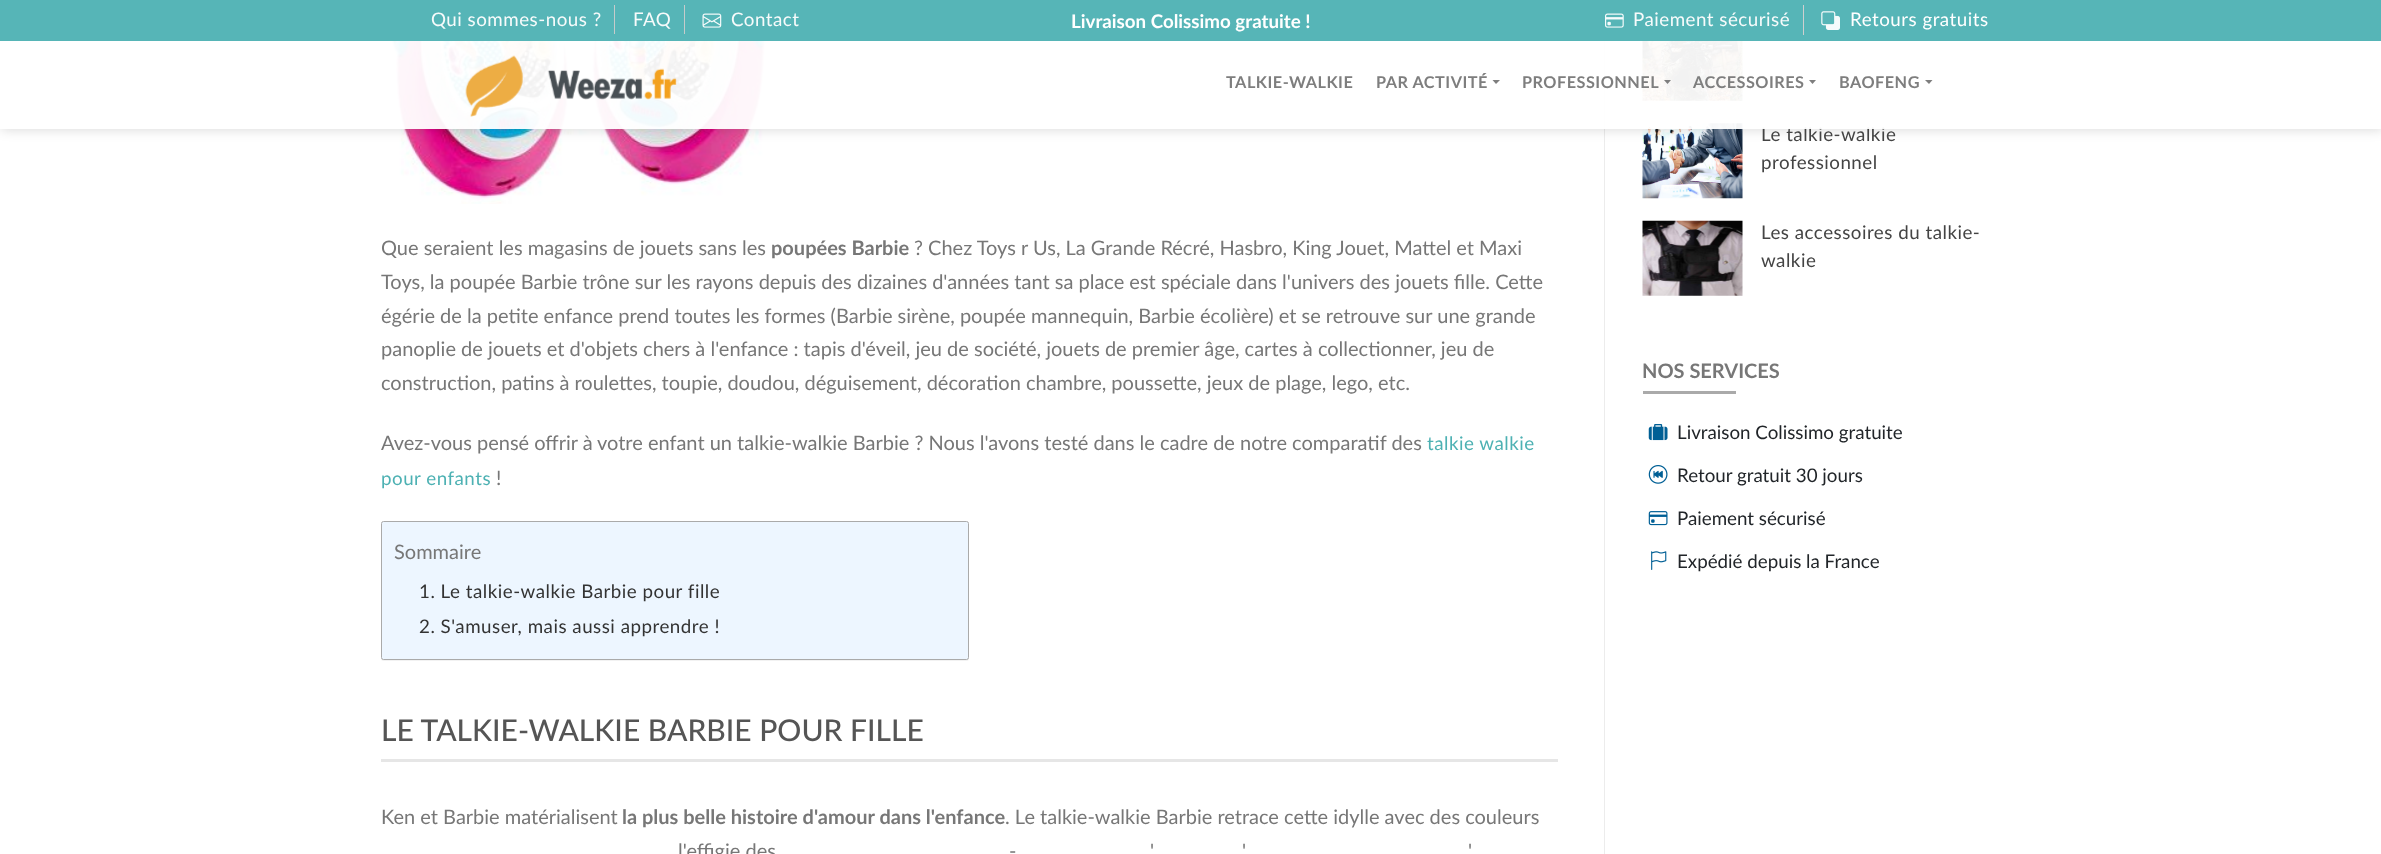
async function draw(canvas) {
	canvas.width = 2381;
	canvas.height = 854;
	const c = canvas.getContext('2d');
	c.miterLimit = 4;
	c.fontKerning = 'normal';
	async function loadImage(src) {
		const img = new Image();
		img.src = src;
		await img.decode();
		return img;
	}

	c.fillStyle = '#fff';
	c.fillRect(0, 0, 2381, 854);
	c.drawImage(await loadImage('img5.png'), 381, 0, 401, 204);
	c.fillStyle = '#ececec';
	c.fillRect(1604, 0, 1, 854);
	c.drawImage(await loadImage('img6.png'), 1681, 0, 29, 2);
	c.drawImage(await loadImage('img7.png'), 1642, 25, 101, 76);
	c.drawImage(await loadImage('img8.png'), 1642, 123, 101, 76);
	c.save();
	c.beginPath();
	c.moveTo(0, 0);
	c.lineTo(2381, 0);
	c.lineTo(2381, 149);
	c.lineTo(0, 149);
	c.closePath();
	c.moveTo(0, 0);
	c.lineTo(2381, 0);
	c.lineTo(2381, 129);
	c.lineTo(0, 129);
	c.closePath();
	c.clip('evenodd');
	c.fillStyle = '#00000024';
	c.filter = 'blur(6px)';
	c.beginPath();
	c.rect(1, 1, 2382, 129);
	c.fill();
	c.filter = 'none';
	c.restore();
	c.letterSpacing = '0.5px';
	c.font = '18.75px Lato';
	c.fillStyle = '#444';
	c.fillText('Le talkie-walkie', 1761, 141);
	for (const [x, y, w, h, color] of [
		[1, 0, 2380, 129, '#fffffff2'],
		[0, 0, 2381, 41, '#4db1b3f2'],
		[614, 5, 1, 29, '#c6cbcb'],
	]) {
		c.fillStyle = color;
		c.fillRect(x, y, w, h);
	}
	c.fillStyle = '#f7fbfb';
	c.fillText('Qui sommes-nous ?', 431, 26);
	c.fillStyle = '#c6cbcb';
	c.fillRect(684, 5, 1, 29);
	c.fillStyle = '#f7fbfb';
	c.fillText('FAQ', 633, 26);
	c.drawImage(await loadImage('img1.png'), 702, 13, 20, 15);
	c.fillText('Contact', 731, 26);
	c.letterSpacing = '0px';
	c.font = 'bold 18.75px Lato';
	c.fillStyle = '#fff';
	c.fillText('Livraison Colissimo gratuite !', 1071, 28);
	c.fillStyle = '#cfcfcf';
	c.fillRect(1803, 5, 1, 30);
	c.drawImage(await loadImage('img2.png'), 1605, 13, 19, 15);
	c.letterSpacing = '0.5px';
	c.font = '18.75px Lato';
	c.fillStyle = '#f7fbfb';
	c.fillText('Paiement sécurisé', 1633, 26);
	c.drawImage(await loadImage('img3.png'), 1821, 11, 19, 19);
	c.fillStyle = '#fff';
	c.fillText('Retours gratuits', 1850, 26);
	c.drawImage(await loadImage('img4.png'), 465, 55, 212, 62);
	c.font = 'bold 16.25px Lato';
	c.fillStyle = '#7e7e7e';
	c.fillText('TALKIE-WALKIE', 1226, 88);
	c.fillText('PAR ACTIVITÉ', 1376, 88);
	c.beginPath();
	c.moveTo(1492.5, 80);
	c.lineTo(1500, 80);
	c.lineTo(1496, 84);
	c.closePath();
	c.fill();
	c.fillText('PROFESSIONNEL', 1522, 88);
	c.fillStyle = '#777777f2';
	c.beginPath();
	c.moveTo(1664, 80);
	c.lineTo(1671, 80);
	c.lineTo(1667.5, 84);
	c.closePath();
	c.fill();
	c.fillStyle = '#7e7e7e';
	c.fillText('ACCESSOIRES', 1693, 88);
	c.beginPath();
	c.moveTo(1809, 80);
	c.lineTo(1816, 80);
	c.lineTo(1812.5, 84);
	c.closePath();
	c.fill();
	c.fillText('BAOFENG', 1839, 88);
	c.beginPath();
	c.moveTo(1925, 80);
	c.lineTo(1932.5, 80);
	c.lineTo(1929, 84);
	c.closePath();
	c.fill();
	c.letterSpacing = '0px';
	c.font = '20px Lato';
	c.fillStyle = '#777';
	c.fillText('Que seraient les magasins de jouets sans les', 381, 255);
	c.font = 'bold 20px Lato';
	c.fillText('poupées Barbie', 771, 255);
	c.font = '20px Lato';
	for (const [text, x, y] of [
		['? Chez Toys r Us, La Grande Récré, Hasbro, King Jouet, Mattel et Maxi', 914, 255],
		['Toys, la poupée Barbie trône sur les rayons depuis des dizaines d\'années tant sa place est spéciale dans l\'univers des jouets fille. Cette', 381, 289],
		['égérie de la petite enfance prend toutes les formes (Barbie sirène, poupée mannequin, Barbie écolière) et se retrouve sur une grande', 381, 323],
		['panoplie de jouets et d\'objets chers à l\'enfance : tapis d\'éveil, jeu de société, jouets de premier âge, cartes à collectionner, jeu de', 381, 356],
		['construction, patins à roulettes, toupie, doudou, déguisement, décoration chambre, poussette, jeux de plage, lego, etc.', 381, 390],
		['Avez-vous pensé offrir à', 381, 450],
		['votre enfant un talkie-walkie Barbie ? Nous l\'avons testé dans le cadre de notre comparatif des', 597, 450],
	]) {
		c.fillText(text, x, y);
	}
	c.letterSpacing = '0.5px';
	c.font = '18.75px Lato';
	c.fillStyle = '#4db1b3';
	c.fillText('talkie walkie', 1427, 450);
	c.fillText('pour enfants', 381, 485);
	c.letterSpacing = '0px';
	c.font = '20px Lato';
	c.fillStyle = '#777';
	c.fillText('!', 496, 485);
	c.fillStyle = '#0000000d';
	c.filter = 'blur(0.5px)';
	c.beginPath();
	c.roundRect(381, 523, 588, 138, 2.5);
	c.fill();
	c.filter = 'none';
	c.fillStyle = '#edf6ff';
	c.beginPath();
	c.roundRect(381.5, 521.5, 587, 138, 2);
	c.fill();
	c.strokeStyle = '#aaa';
	c.stroke();
	c.fillStyle = '#777';
	c.fillText('Sommaire', 394, 559);
	c.letterSpacing = '0.5px';
	c.font = '18.75px Lato';
	c.fillStyle = '#333';
	c.fillText('1. Le talkie-walkie Barbie pour fille', 419, 598);
	c.fillText('2. S\'amuser, mais aussi apprendre !', 419, 633);
	c.fillStyle = '#e6e6e6';
	c.fillRect(381, 759, 1177, 3);
	c.letterSpacing = '0px';
	c.font = '500 30px Lato';
	c.fillStyle = '#555';
	c.fillText('LE TALKIE-WALKIE BARBIE POUR FILLE', 381, 741);
	c.font = '20px Lato';
	c.fillStyle = '#777';
	c.fillText('Ken et Barbie matérialisent', 381, 824);
	c.font = 'bold 20px Lato';
	c.fillText('la plus belle histoire d\'amour dans l\'enfance', 622, 824);
	c.font = '20px Lato';
	for (const [text, x, y] of [
		['. Le talkie-walkie Barbie retrace cette idylle avec des couleurs', 1005, 824],
		['l\'effigie des', 678, 858],
		['\'', 1150, 858],
		['\'', 1242, 858],
		['\'', 1468, 858],
		['-', 1009, 858],
	]) {
		c.fillText(text, x, y);
	}
	c.letterSpacing = '0.5px';
	c.font = '18.75px Lato';
	c.fillStyle = '#444';
	c.fillText('professionnel', 1761, 169);
	c.drawImage(await loadImage('img9.png'), 1642, 220, 101, 76);
	c.fillText('Les accessoires du talkie-', 1761, 239);
	c.fillText('walkie', 1761, 267);
	c.letterSpacing = '0px';
	c.font = 'bold 20px Lato';
	c.fillStyle = '#777';
	c.fillText('NOS SERVICES', 1642, 378);
	c.fillStyle = '#aaa';
	c.fillRect(1643, 391, 93, 3);
	c.drawImage(await loadImage('img10.png'), 1648, 424, 20, 17);
	c.font = '18.75px Lato';
	c.fillStyle = '#212529';
	c.fillText('Livraison Colissimo gratuite', 1677, 439);
	c.drawImage(await loadImage('img11.png'), 1648, 465, 20, 19);
	c.fillText('Retour gratuit 30 jours', 1677, 482);
	c.drawImage(await loadImage('img12.png'), 1648, 511, 20, 15);
	c.fillText('Paiement sécurisé', 1677, 525);
	c.drawImage(await loadImage('img13.png'), 1651, 551, 16, 19);
	c.fillText('Expédié depuis la France', 1677, 568);
}

draw(document.querySelector('canvas'));
